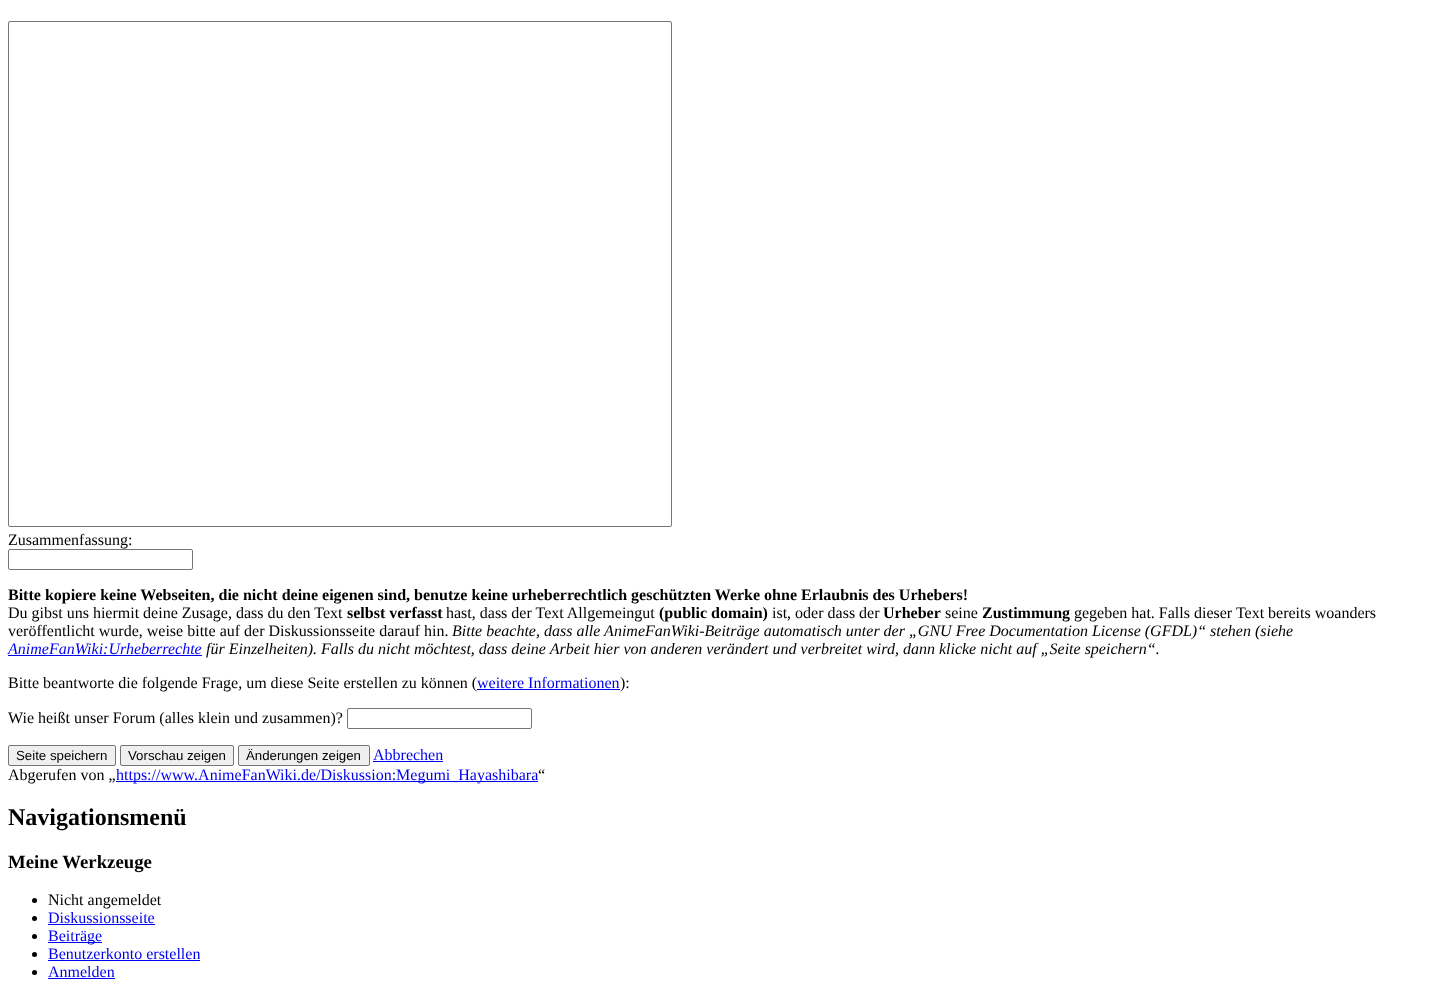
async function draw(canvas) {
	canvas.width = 1441;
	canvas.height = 1000;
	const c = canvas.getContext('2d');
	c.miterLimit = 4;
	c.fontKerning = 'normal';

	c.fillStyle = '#fff';
	c.fillRect(0, 0, 1441, 1000);
	c.beginPath();
	c.roundRect(8.5, 21.5, 663, 505, 1.5);
	c.strokeStyle = '#767676';
	c.stroke();
	c.font = '16px Liberation Serif';
	c.fillStyle = '#000';
	c.fillText('Zusammenfassung:', 8, 545);
	c.beginPath();
	c.roundRect(8.5, 549.5, 184, 20, 1.5);
	c.stroke();
	c.font = 'bold 16px Liberation Serif';
	c.fillText('Bitte kopiere keine Webseiten, die nicht deine eigenen sind, benutze keine urheberrechtlich geschützten Werke ohne Erlaubnis des Urhebers!', 8, 600);
	c.font = '16px Liberation Serif';
	c.fillText('Du gibst uns hiermit deine Zusage, dass du den Text', 8, 618);
	c.font = 'bold 16px Liberation Serif';
	c.fillText('selbst verfasst', 347, 618);
	c.font = '16px Liberation Serif';
	c.fillText('hast, dass der Text Allgemeingut', 446, 618);
	c.font = 'bold 16px Liberation Serif';
	c.fillText('(public domain)', 659, 618);
	c.font = '16px Liberation Serif';
	c.fillText('ist, oder dass der', 772, 618);
	c.font = 'bold 16px Liberation Serif';
	c.fillText('Urheber', 883, 618);
	c.font = '16px Liberation Serif';
	c.fillText('seine', 945, 618);
	c.font = 'bold 16px Liberation Serif';
	c.fillText('Zustimmung', 982, 618);
	c.font = '16px Liberation Serif';
	c.fillText('gegeben hat. Falls dieser Text bereits woanders', 1074, 618);
	c.fillText('veröffentlicht wurde, weise bitte auf der Diskussionsseite darauf hin.', 8, 636);
	c.font = 'italic 16px Liberation Serif';
	c.fillText('Bitte beachte, dass alle AnimeFanWiki-Beiträge automatisch unter der „GNU Free Documentation License (GFDL)“ stehen (siehe', 452, 636);
	c.fillStyle = '#00e';
	c.fillText('AnimeFanWiki:Urheberrechte', 8, 654);
	c.fillRect(8, 655, 194, 1);
	c.fillStyle = '#000';
	c.fillText('für Einzelheiten). Falls du nicht möchtest, dass deine Arbeit hier von anderen verändert und verbreitet wird, dann klicke nicht auf „Seite speichern“.', 206, 654);
	c.font = '16px Liberation Serif';
	c.fillText('Bitte beantworte die folgende Frage, um diese Seite erstellen zu können (', 8, 688);
	c.fillStyle = '#00e';
	c.fillText('weitere Informationen', 477, 688);
	c.fillRect(477, 689, 143, 1);
	c.fillStyle = '#000';
	c.fillText('):', 620, 688);
	c.fillText('Wie heißt unser Forum (alles klein und zusammen)?', 8, 723);
	c.beginPath();
	c.roundRect(347.5, 708.5, 184, 20, 1.5);
	c.stroke();
	c.fillStyle = '#efefef';
	c.beginPath();
	c.roundRect(8.5, 745.5, 107, 20, 1.5);
	c.fill();
	c.stroke();
	c.font = '13.25px Liberation Sans';
	c.fillStyle = '#000';
	c.fillText('Seite speichern', 16, 760);
	c.fillStyle = '#efefef';
	c.beginPath();
	c.roundRect(120.5, 745.5, 113, 20, 1.5);
	c.fill();
	c.stroke();
	c.fillStyle = '#000';
	c.fillText('Vorschau zeigen', 128, 760);
	c.fillStyle = '#efefef';
	c.beginPath();
	c.roundRect(238.5, 745.5, 131, 20, 1.5);
	c.fill();
	c.stroke();
	c.fillStyle = '#000';
	c.fillText('Änderungen zeigen', 246, 760);
	c.font = '16px Liberation Serif';
	c.fillStyle = '#00e';
	c.fillText('Abbrechen', 373, 760);
	c.fillRect(373, 761, 70, 1);
	c.fillStyle = '#000';
	c.fillText('Abgerufen von „', 8, 780);
	c.fillStyle = '#00e';
	c.fillRect(116, 781, 422, 1);
	c.fillText('https://www.AnimeFanWiki.de/Diskussion:Megumi_Hayashibara', 116, 780);
	c.fillStyle = '#000';
	c.fillText('“', 538, 780);
	c.font = 'bold 24px Liberation Serif';
	c.fillText('Navigationsmenü', 8, 825);
	c.font = 'bold 18.75px Liberation Serif';
	c.fillText('Meine Werkzeuge', 8, 868);
	c.beginPath();
	c.arc(34.5, 900.5, 2.5, 0, 2 * Math.PI);
	c.fill();
	c.font = '16px Liberation Serif';
	c.fillText('Nicht angemeldet', 48, 905);
	c.beginPath();
	c.arc(34.5, 918.5, 2.5, 0, 2 * Math.PI);
	c.fill();
	c.fillStyle = '#00e';
	c.fillText('Diskussionsseite', 48, 923);
	c.fillRect(48, 924, 107, 1);
	c.fillStyle = '#000';
	c.beginPath();
	c.arc(34.5, 936.5, 2.5, 0, 2 * Math.PI);
	c.fill();
	c.fillStyle = '#00e';
	c.fillRect(48, 942, 54, 1);
	c.fillText('Beiträge', 48, 941);
	c.fillStyle = '#000';
	c.beginPath();
	c.arc(34.5, 954.5, 2.5, 0, 2 * Math.PI);
	c.fill();
	c.fillStyle = '#00e';
	c.fillText('Benutzerkonto erstellen', 48, 959);
	c.fillRect(48, 960, 152, 1);
	c.fillStyle = '#000';
	c.beginPath();
	c.arc(34.5, 972.5, 2.5, 0, 2 * Math.PI);
	c.fill();
	c.fillStyle = '#00e';
	c.fillText('Anmelden', 48, 977);
	c.fillRect(48, 978, 67, 1);
}

draw(document.querySelector('canvas'));
